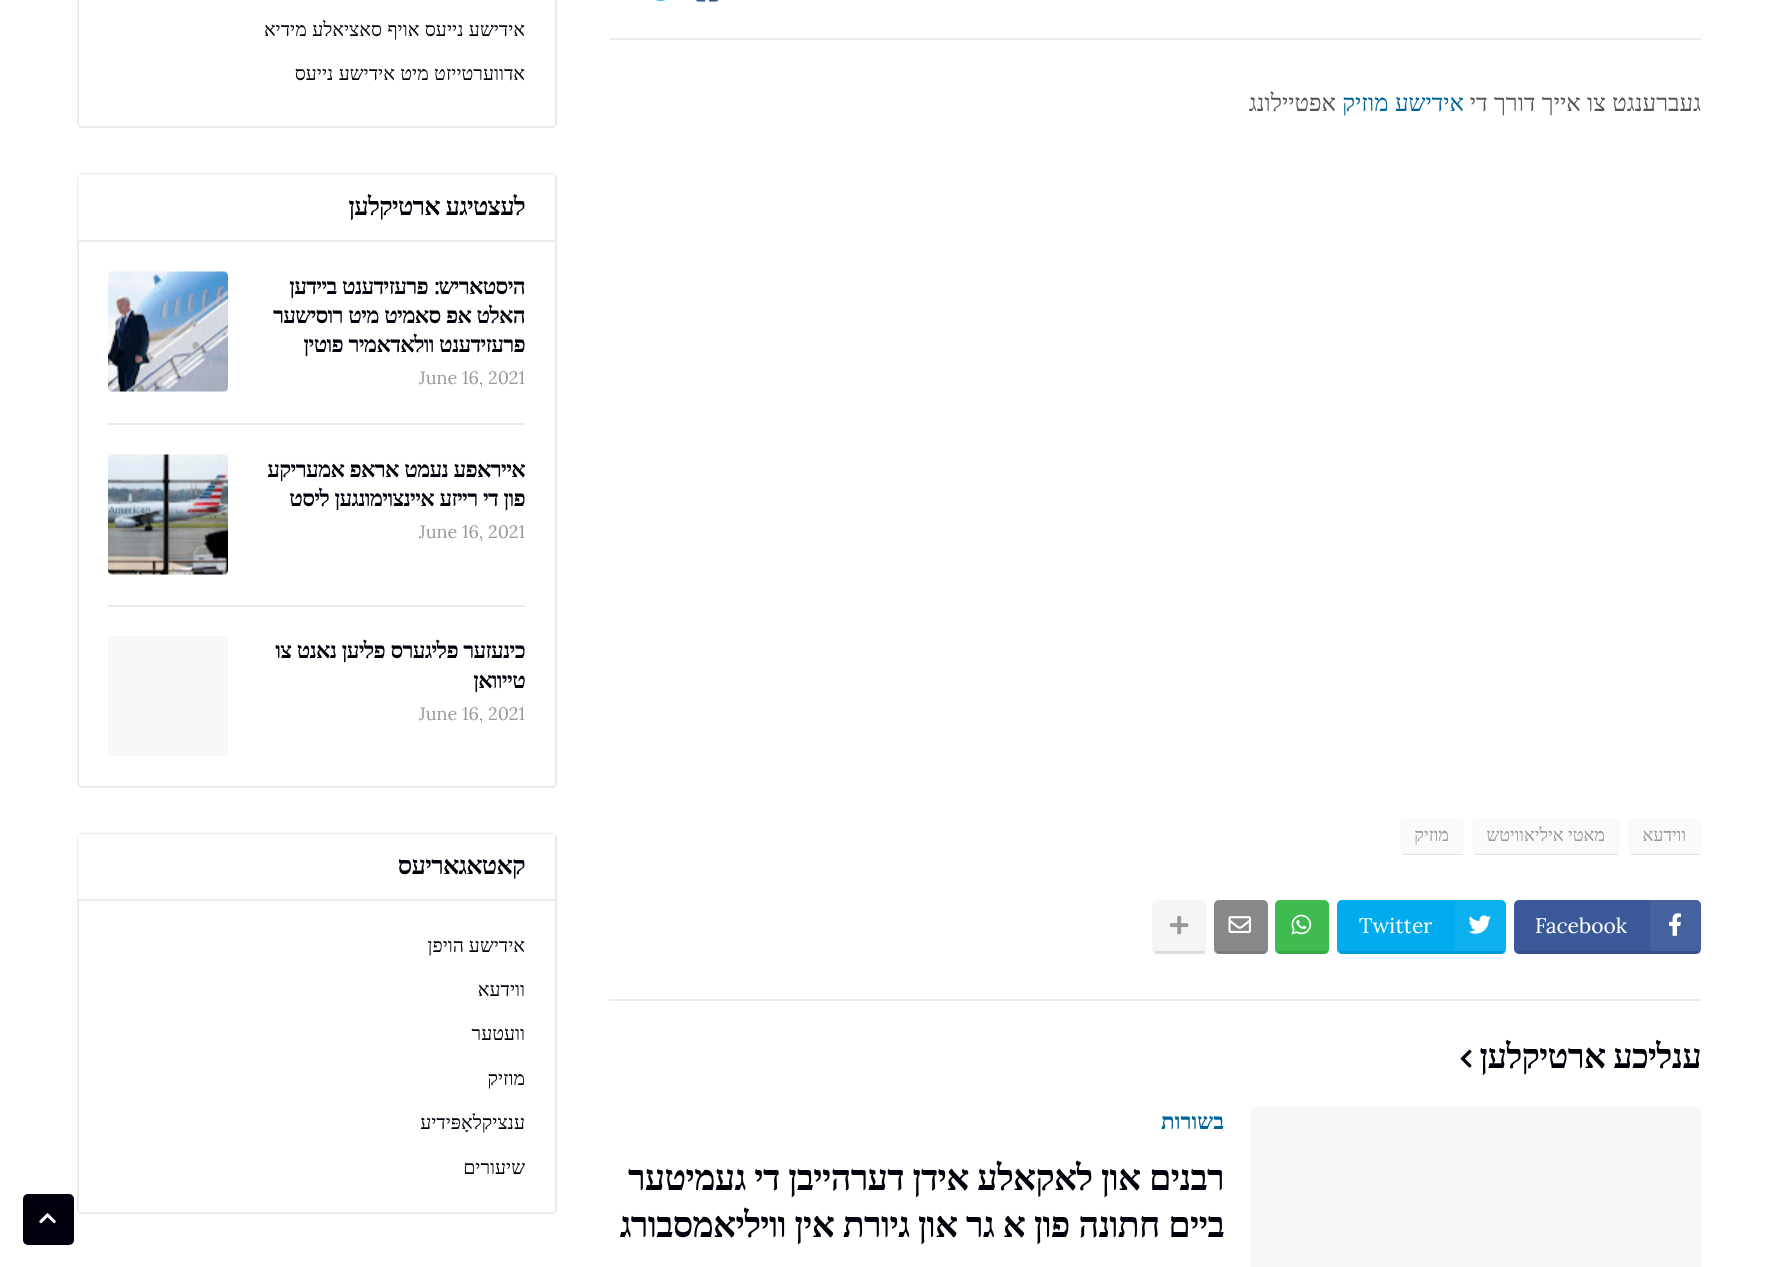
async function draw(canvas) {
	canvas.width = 1777;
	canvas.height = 1267;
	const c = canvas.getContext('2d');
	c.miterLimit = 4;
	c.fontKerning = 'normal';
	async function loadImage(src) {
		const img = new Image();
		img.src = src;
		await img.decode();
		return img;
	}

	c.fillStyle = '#fff';
	c.fillRect(0, 0, 1777, 1267);
	c.fillStyle = '#ebebeb';
	c.fillRect(609, 38, 1092, 2);
	c.drawImage(await loadImage('img1.png'), 696, 0, 23, 2);
	c.drawImage(await loadImage('img2.png'), 656, 0, 10, 1);
	c.wordSpacing = '0.5px';
	c.direction = 'rtl';
	c.font = '24px Liberation Serif';
	c.fillStyle = '#555';
	c.fillText('געברענגט צו אייך דורך די', 1701, 111);
	c.fillStyle = '#069';
	c.fillText('אידישע מוזיק', 1464, 111);
	c.wordSpacing = '0px';
	c.fillStyle = '#555';
	c.fillText('אפטיילונג', 1336, 111);
	c.fillStyle = '#fafafa';
	c.beginPath();
	c.roundRect(1628, 818, 73, 37, 5);
	c.fill();
	c.fillStyle = '#0000001a';
	c.fillRect(1631, 854, 69, 1);
	c.font = '18px Liberation Serif';
	c.fillStyle = '#999';
	c.fillText('ווידעא', 1686, 841);
	c.fillStyle = '#fafafa';
	c.beginPath();
	c.roundRect(1472, 818, 148, 37, 5);
	c.fill();
	c.fillStyle = '#0000001a';
	c.fillRect(1475, 854, 144, 1);
	c.fillStyle = '#999';
	c.fillText('מאטי איליאוויטש', 1605, 841);
	c.fillStyle = '#fafafa';
	c.beginPath();
	c.roundRect(1400, 818, 64, 37, 5);
	c.fill();
	c.fillStyle = '#0000001a';
	c.fillRect(1403, 854, 60, 1);
	c.fillStyle = '#999';
	c.fillText('מוזיק', 1449, 841);
	c.fillStyle = '#3b5999';
	c.beginPath();
	c.roundRect(1514, 900, 187, 54, 5);
	c.fill();
	c.fillStyle = '#0000001a';
	c.fillRect(1517, 951, 183, 3);
	c.fillStyle = '#ffffff0d';
	c.fillRect(1650, 900, 51, 51);
	c.drawImage(await loadImage('img3.png'), 1669, 913, 13, 23);
	c.direction = 'ltr';
	c.font = '21px Lora';
	c.fillStyle = '#fff';
	c.fillText('Facebook', 1535, 933);
	c.fillStyle = '#00acee';
	c.beginPath();
	c.roundRect(1337, 900, 169, 54, 5);
	c.fill();
	c.fillStyle = '#0000001a';
	c.fillRect(1340, 951, 165, 3);
	c.fillStyle = '#ffffff0d';
	c.fillRect(1455, 900, 51, 51);
	c.drawImage(await loadImage('img4.png'), 1468, 915, 23, 19);
	c.fillStyle = '#fff';
	c.fillText('Twitter', 1359, 933);
	c.fillStyle = '#3fbb50';
	c.beginPath();
	c.roundRect(1275, 900, 54, 54, 5);
	c.fill();
	c.fillStyle = '#0000001a';
	c.fillRect(1278, 951, 50, 3);
	c.drawImage(await loadImage('img5.png'), 1291, 914, 21, 21);
	c.fillStyle = '#888';
	c.beginPath();
	c.roundRect(1214, 900, 54, 54, 5);
	c.fill();
	c.fillStyle = '#0000001a';
	c.fillRect(1217, 951, 49, 3);
	c.drawImage(await loadImage('img6.png'), 1228, 916, 23, 17);
	c.fillStyle = '#f5f5f5';
	c.beginPath();
	c.roundRect(1152, 900, 54, 54, 5);
	c.fill();
	c.fillStyle = '#0000001a';
	c.fillRect(1155, 951, 50, 3);
	c.drawImage(await loadImage('img7.png'), 1170, 915, 19, 20);
	c.fillStyle = '#ebebeb';
	c.fillRect(609, 999, 1092, 2);
	c.letterSpacing = '-0.75px';
	c.direction = 'rtl';
	c.font = 'bold 34.5px Liberation Serif';
	c.fillStyle = '#01000d';
	c.fillText('ענליכע ארטיקלען', 1701, 1068);
	c.drawImage(await loadImage('img8.png'), 1460, 1049, 12, 19);
	c.fillStyle = '#f7f7f7';
	c.beginPath();
	c.roundRect(1251, 1107, 450, 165, 5);
	c.fill();
	c.letterSpacing = '0px';
	c.font = 'bold 22.5px Liberation Serif';
	c.fillStyle = '#069';
	c.fillText('בשורות', 1224, 1129);
	c.letterSpacing = '-0.75px';
	c.wordSpacing = '0.5px';
	c.font = 'bold 36px Liberation Serif';
	c.fillStyle = '#01000d';
	c.fillText('רבנים און לאקאלע אידן דערהייבן די געמיטער', 1224, 1190);
	c.fillText('ביים חתונה פון א גר און גיורת אין וויליאמסבורג', 1224, 1237);
	c.beginPath();
	c.roundRect(78, -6, 478, 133, 4);
	c.strokeStyle = '#ebebeb';
	c.lineWidth = 2;
	c.stroke();
	c.letterSpacing = '0px';
	c.font = '19.5px Liberation Serif';
	c.fillText('אידישע נייעס אויף סאציאלע מידיא', 525, 36);
	c.fillText('אדווערטייזט מיט אידישע נייעס', 525, 80);
	c.beginPath();
	c.roundRect(78, 174, 478, 613, 4);
	c.stroke();
	c.fillStyle = '#fff';
	c.beginPath();
	c.roundRect(78, 174, 477, 68, [3, 3, 0, 0]);
	c.fill();
	c.fillStyle = '#ebebeb';
	c.fillRect(78, 240, 477, 2);
	c.letterSpacing = '-0.75px';
	c.wordSpacing = '0px';
	c.font = 'bold 25.5px Liberation Serif';
	c.fillStyle = '#01000d';
	c.fillText('לעצטיגע ארטיקלען', 525, 215);
	c.font = 'bold 22.5px Liberation Serif';
	c.fillText('היסטאריש', 525, 294);
	c.font = 'bold 22.5px Lora';
	c.fillText(':', 439, 294);
	c.wordSpacing = '0.5px';
	c.font = 'bold 22.5px Liberation Serif';
	for (const [text, x, y] of [
		['פרעזידענט ביידען', 428, 294],
		['האלט אפ סאמיט מיט רוסישער', 525, 323],
		['פרעזידענט וולאדאמיר פוטין', 525, 352],
	]) {
		c.fillText(text, x, y);
	}
	c.letterSpacing = '0px';
	c.wordSpacing = '0px';
	c.direction = 'ltr';
	c.font = '18px Lora';
	c.fillStyle = '#999';
	c.fillText('June 16, 2021', 419, 384);
	c.fillStyle = '#f7f7f7';
	c.beginPath();
	c.roundRect(108, 272, 120, 120, 5);
	c.fill();
	c.drawImage(await loadImage('img9.png'), 108, 271, 120, 121);
	c.fillStyle = '#ebebeb';
	c.fillRect(108, 423, 417, 2);
	c.letterSpacing = '-0.75px';
	c.wordSpacing = '0.5px';
	c.direction = 'rtl';
	c.font = 'bold 22.5px Liberation Serif';
	c.fillStyle = '#01000d';
	c.fillText('אייראפע נעמט אראפ אמעריקע', 525, 477);
	c.fillText('פון די רייזע איינצוימונגען ליסט', 525, 506);
	c.letterSpacing = '0px';
	c.wordSpacing = '0px';
	c.direction = 'ltr';
	c.font = '18px Lora';
	c.fillStyle = '#999';
	c.fillText('June 16, 2021', 419, 538);
	c.fillStyle = '#f7f7f7';
	c.beginPath();
	c.roundRect(108, 455, 120, 120, 5);
	c.fill();
	c.drawImage(await loadImage('img10.png'), 108, 454, 120, 121);
	c.fillStyle = '#ebebeb';
	c.fillRect(108, 605, 417, 2);
	c.letterSpacing = '-0.75px';
	c.wordSpacing = '0.5px';
	c.direction = 'rtl';
	c.font = 'bold 22.5px Liberation Serif';
	c.fillStyle = '#01000d';
	c.fillText('כינעזער פליגערס פליען נאנט צו', 525, 658);
	c.wordSpacing = '0px';
	c.fillText('טייוואן', 525, 688);
	c.letterSpacing = '0px';
	c.direction = 'ltr';
	c.font = '18px Lora';
	c.fillStyle = '#999';
	c.fillText('June 16, 2021', 419, 720);
	c.fillStyle = '#f7f7f7';
	c.beginPath();
	c.roundRect(108, 636, 120, 120, 5);
	c.fill();
	c.beginPath();
	c.roundRect(78, 834, 478, 379, 4);
	c.stroke();
	c.fillStyle = '#fff';
	c.beginPath();
	c.roundRect(78, 834, 477, 66, [3, 3, 0, 0]);
	c.fill();
	c.fillStyle = '#9b9b9b33';
	c.fillRect(78, 899, 477, 2);
	c.letterSpacing = '-0.75px';
	c.direction = 'rtl';
	c.font = 'bold 25.5px Liberation Serif';
	c.fillStyle = '#01000d';
	c.fillText('קאטאגאריעס', 525, 874);
	c.letterSpacing = '0px';
	c.font = '19.5px Liberation Serif';
	for (const [text, x, y] of [
		['אידישע הויפן', 525, 952],
		['ווידעא', 525, 996],
		['וועטער', 525, 1040],
		['מוזיק', 525, 1085],
		['ענציקלאָפּידיע', 525, 1129],
		['שיעורים', 525, 1174],
	]) {
		c.fillText(text, x, y);
	}
	c.beginPath();
	c.roundRect(23, 1194, 51, 51, 5);
	c.fill();
	c.fillStyle = '#0000001a';
	c.fillRect(26, 1244, 46, 1);
	c.drawImage(await loadImage('img11.png'), 39, 1213, 17, 11);
}

draw(document.querySelector('canvas'));
